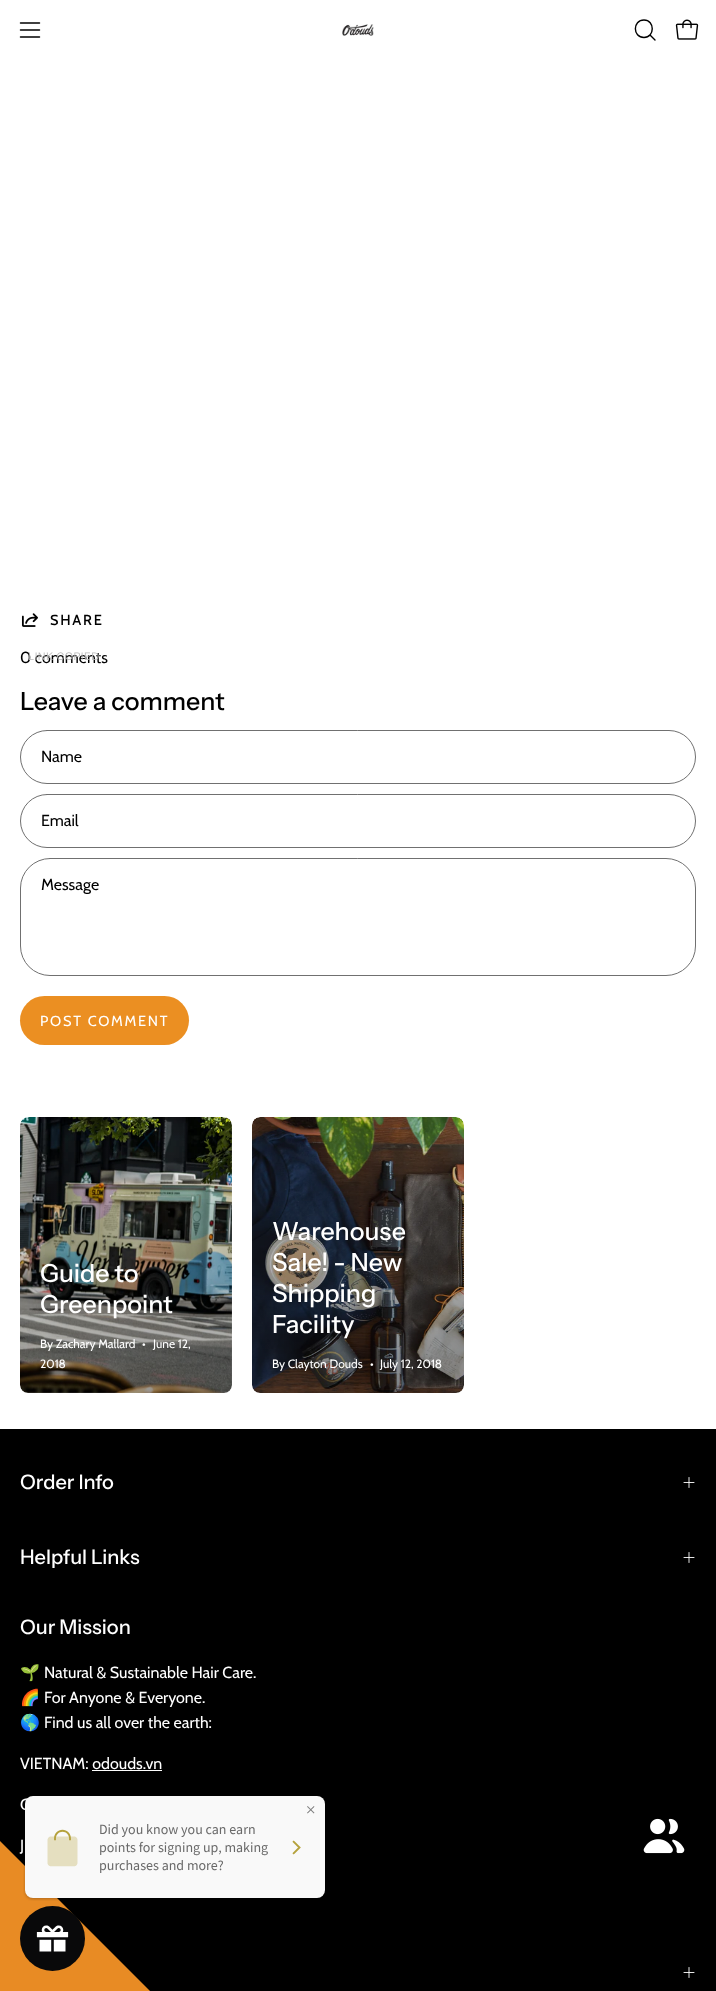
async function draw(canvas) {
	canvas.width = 716;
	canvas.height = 1991;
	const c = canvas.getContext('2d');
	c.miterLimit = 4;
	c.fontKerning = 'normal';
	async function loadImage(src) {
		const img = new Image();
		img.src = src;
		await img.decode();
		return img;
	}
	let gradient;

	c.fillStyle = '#fff';
	c.fillRect(0, 0, 716, 1991);
	c.beginPath();
	c.moveTo(20.5, 30);
	c.lineTo(39.5, 30);
	c.moveTo(20.5, 23);
	c.lineTo(39.5, 23);
	c.moveTo(20.5, 37);
	c.lineTo(39.5, 37);
	c.strokeStyle = '#000';
	c.lineWidth = 1.5;
	c.lineCap = 'round';
	c.lineJoin = 'round';
	c.stroke();
	c.drawImage(await loadImage('img1.png'), 342, 24, 32, 12);
	c.beginPath();
	c.moveTo(644, 37.5);
	c.bezierCurveTo(655, 37.5, 655, 20, 644, 20);
	c.bezierCurveTo(632.5, 20, 632.5, 37.5, 644, 37.5);
	c.closePath();
	c.moveTo(650, 35);
	c.lineTo(655, 40);
	c.lineWidth = 1.4;
	c.stroke();
	c.drawImage(await loadImage('img2.png'), 675, 19, 24, 21);
	c.drawImage(await loadImage('img3.png'), 21, 613, 17, 14);
	c.letterSpacing = '1.75px';
	c.font = '500 14.5px Cabin';
	c.fillStyle = '#000';
	c.fillText('SHARE', 50, 625);
	c.letterSpacing = '0px';
	c.font = '16px Cabin';
	c.fillText('0 comments', 20, 663);
	c.letterSpacing = '0.5px';
	c.font = '10.5px Instrument Sans';
	c.fillStyle = '#b9b9b9';
	c.fillText('LINK COPIED', 28, 660);
	c.letterSpacing = '0px';
	c.font = '500 25px Instrument Sans';
	c.fillStyle = '#000';
	c.fillText('Leave a comment', 20, 710);
	c.beginPath();
	c.roundRect(20.5, 730.5, 675, 53, 26.5);
	c.strokeStyle = '#707070';
	c.lineWidth = 1;
	c.lineJoin = 'miter';
	c.stroke();
	c.font = '16px Cabin';
	c.fillText('Name', 41, 762);
	c.beginPath();
	c.roundRect(20.5, 794.5, 675, 53, 26.5);
	c.stroke();
	c.fillText('Email', 41, 826);
	c.beginPath();
	c.roundRect(20.5, 858.5, 675, 117, 29.5);
	c.stroke();
	c.fillText('Message', 41, 890);
	c.fillStyle = '#eb8f22';
	c.beginPath();
	c.roundRect(20, 996, 169, 49, 24.5);
	c.fill();
	c.letterSpacing = '1.75px';
	c.font = '14.5px Cabin';
	c.fillStyle = '#fff';
	c.fillText('POST COMMENT', 40, 1026);
	c.drawImage(await loadImage('img4.png'), 20, 1117, 212, 276);
	gradient = c.createLinearGradient(126, 1117, 126, 1393);
	gradient.addColorStop(0, '#00000000');
	gradient.addColorStop(1, '#00000066');
	c.fillStyle = gradient;
	c.beginPath();
	c.roundRect(20, 1117, 212, 276, 8);
	c.fill();
	c.letterSpacing = '0px';
	c.font = '500 25px Instrument Sans';
	c.fillStyle = '#fff';
	c.fillText('Guide to', 40, 1282);
	c.fillText('Greenpoint', 40, 1313);
	c.font = '12px Cabin';
	for (const [text, x, y] of [
		['By Zachary Mallard', 40, 1348],
		['•', 142, 1348],
		['June 12,', 153, 1348],
		['2018', 40, 1368],
	]) {
		c.fillText(text, x, y);
	}
	c.drawImage(await loadImage('img5.png'), 252, 1117, 212, 276);
	gradient = c.createLinearGradient(358, 1117, 358, 1393);
	gradient.addColorStop(0, '#00000000');
	gradient.addColorStop(1, '#00000066');
	c.fillStyle = gradient;
	c.beginPath();
	c.roundRect(252, 1117, 212, 276, 8);
	c.fill();
	c.font = '500 25px Instrument Sans';
	c.fillStyle = '#fff';
	for (const [text, x, y] of [
		['Warehouse', 272, 1240],
		['Sale! - New', 272, 1271],
		['Shipping', 272, 1302],
		['Facility', 272, 1333],
	]) {
		c.fillText(text, x, y);
	}
	c.font = '12px Cabin';
	for (const [text, x, y] of [
		['By Clayton Douds', 272, 1368],
		['•', 370, 1368],
		['July 12, 2018', 380, 1368],
	]) {
		c.fillText(text, x, y);
	}
	c.fillStyle = '#000';
	c.fillRect(0, 1429, 716, 562);
	c.font = '500 20px Instrument Sans';
	c.fillStyle = '#fff';
	c.fillText('Order Info', 20, 1489);
	c.beginPath();
	c.moveTo(684, 1482.5);
	c.lineTo(694, 1482.5);
	c.moveTo(689, 1477.5);
	c.lineTo(689, 1487.5);
	c.strokeStyle = '#fff';
	c.lineWidth = 0.9;
	c.lineJoin = 'round';
	c.stroke();
	c.fillText('Helpful Links', 20, 1564);
	c.beginPath();
	c.moveTo(684, 1557.5);
	c.lineTo(694, 1557.5);
	c.moveTo(689, 1552.5);
	c.lineTo(689, 1562.5);
	c.stroke();
	c.fillText('Our Mission', 20, 1634);
	c.font = '16px Noto Color Emoji';
	c.fillText('🌱', 20, 1678);
	c.font = '16px Cabin';
	c.fillText('Natural & Sustainable Hair Care.', 44, 1678);
	c.font = '16px Noto Color Emoji';
	c.fillText('🌈', 20, 1703);
	c.font = '16px Cabin';
	c.fillText('For Anyone & Everyone.', 44, 1703);
	c.font = '16px Noto Color Emoji';
	c.fillText('🌎', 20, 1728);
	c.font = '16px Cabin';
	c.fillText('Find us all over the earth:', 44, 1728);
	c.fillText('VIETNAM: odouds.vn', 20, 1769);
	c.fillRect(92, 1770, 70, 1);
	c.fillText('C', 20, 1810);
	c.fillText('J', 20, 1851);
	c.beginPath();
	c.moveTo(684, 1972.5);
	c.lineTo(694, 1972.5);
	c.moveTo(689, 1967.5);
	c.lineTo(689, 1977.5);
	c.stroke();
	c.fillStyle = '#e88b24';
	c.beginPath();
	c.moveTo(0, 1841);
	c.lineTo(0, 1991);
	c.lineTo(150, 1991);
	c.closePath();
	c.fill();
	c.drawImage(await loadImage('img6.png'), 23, 1796, 302, 105);
	c.drawImage(await loadImage('img7.png'), 643, 1818, 42, 36);
	c.drawImage(await loadImage('img8.png'), 20, 1906, 65, 65);
}

draw(document.querySelector('canvas'));
